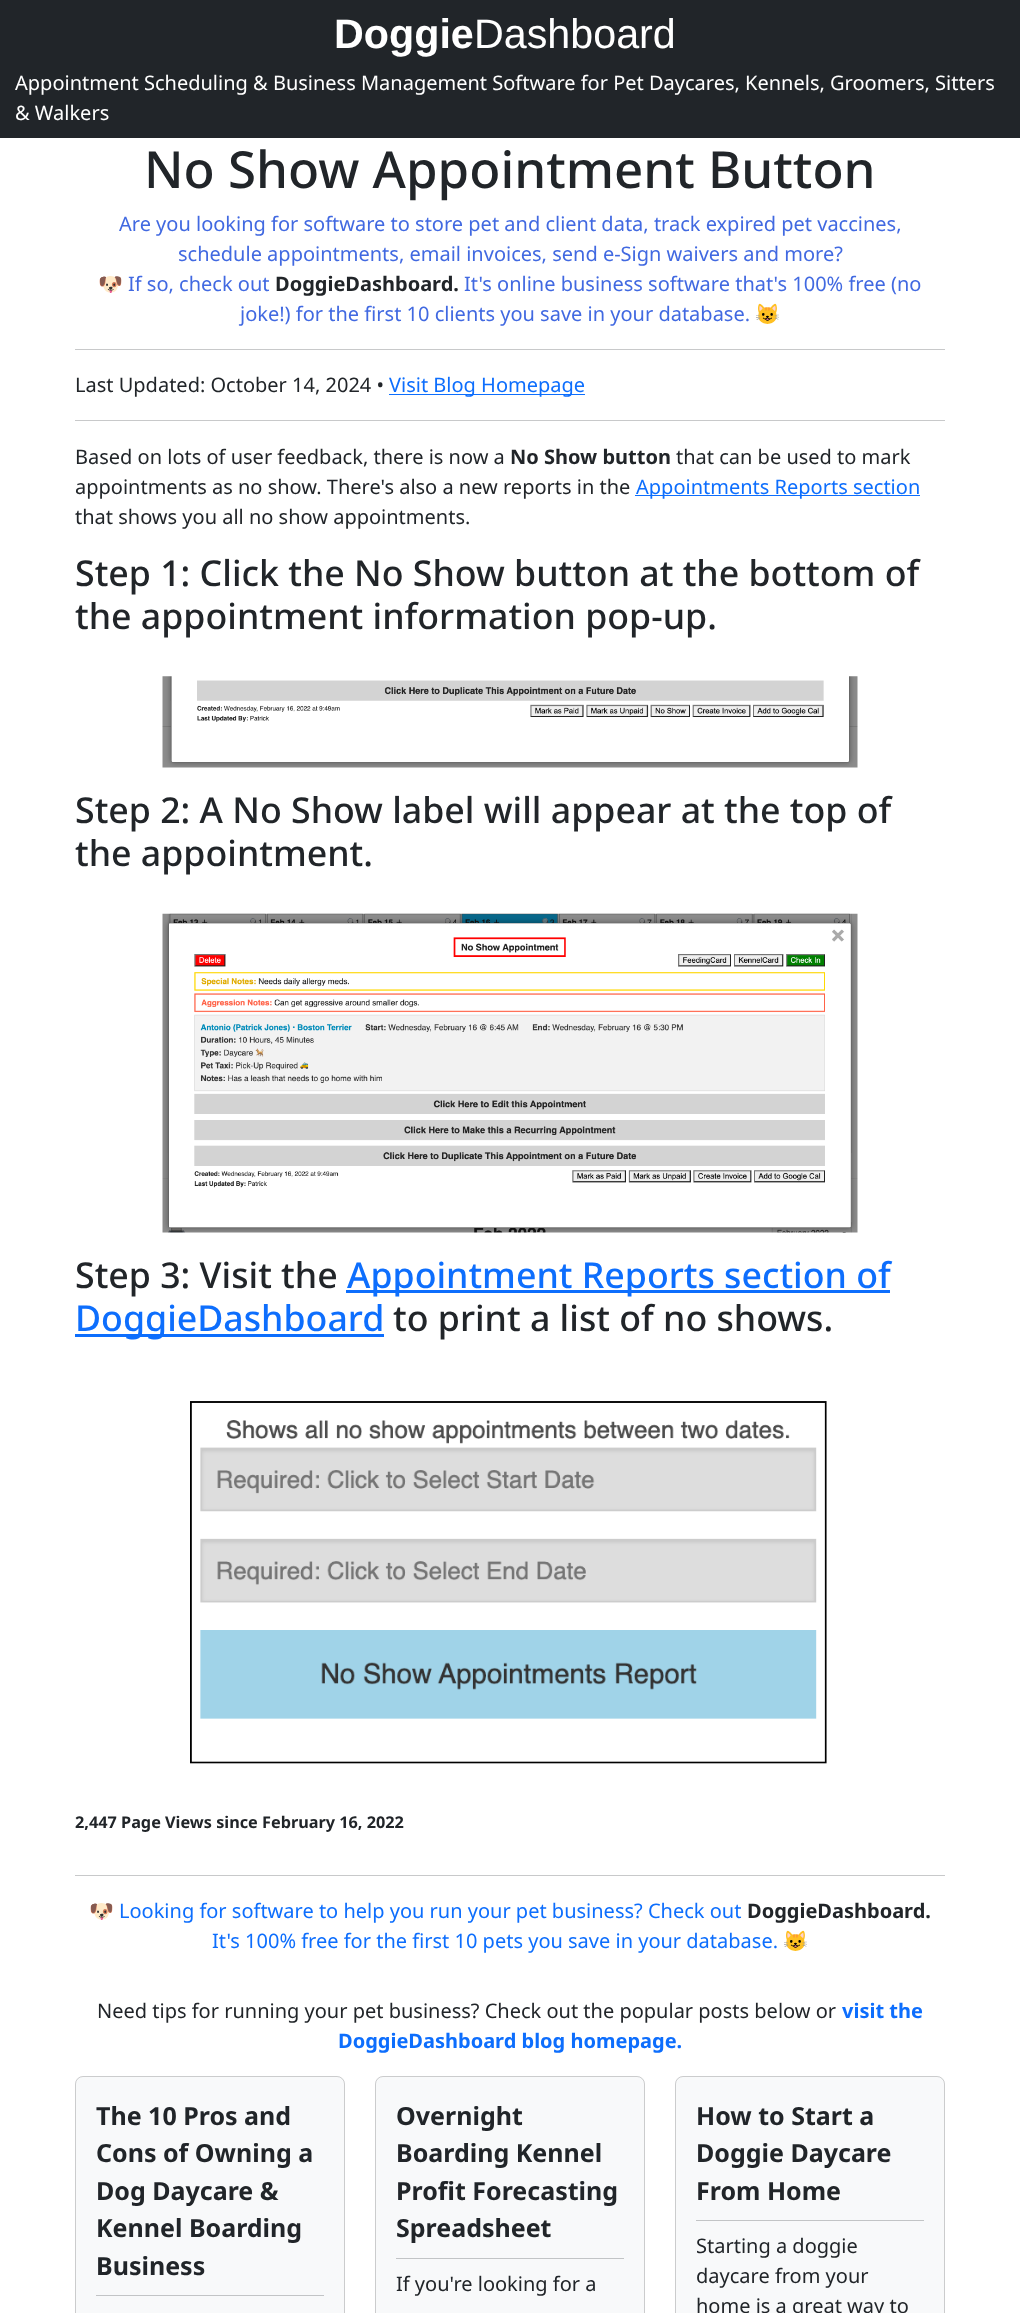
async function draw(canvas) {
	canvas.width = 1020;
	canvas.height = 2313;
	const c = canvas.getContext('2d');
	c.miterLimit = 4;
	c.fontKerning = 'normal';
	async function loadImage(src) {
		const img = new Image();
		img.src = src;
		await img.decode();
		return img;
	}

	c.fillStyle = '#fff';
	c.fillRect(0, 0, 1020, 2313);
	c.fillStyle = '#212529';
	c.fillRect(0, 0, 1020, 138);
	c.font = 'bold 41.25px Liberation Sans';
	c.fillStyle = '#fff';
	c.fillText('Doggie', 334, 48);
	c.font = '41.25px Liberation Sans';
	c.fillText('Dashboard', 474, 48);
	c.font = '20px Noto Sans';
	c.fillText('Appointment Scheduling & Business Management Software for Pet Daycares, Kennels, Groomers, Sitters', 15, 90);
	c.fillText('& Walkers', 15, 120);
	c.font = '500 51px Noto Sans';
	c.fillStyle = '#212529';
	c.fillText('No Show Appointment Button', 144, 188);
	c.font = '20px Noto Sans';
	c.fillStyle = '#4169e1';
	c.fillText('Are you looking for software to store pet and client data, track expired pet vaccines,', 119, 231);
	c.fillText('schedule appointments, email invoices, send e-Sign waivers and more?', 178, 261);
	c.font = '20px Noto Color Emoji';
	c.fillText('🐶', 98, 291);
	c.font = '20px Noto Sans';
	c.fillText('If so, check out', 128, 291);
	c.font = 'bold 20px Noto Sans';
	c.fillStyle = '#212529';
	c.fillText('DoggieDashboard.', 275, 291);
	c.font = '20px Noto Sans';
	c.fillStyle = '#4169e1';
	c.fillText('It\'s online business software that\'s 100% free (no', 464, 291);
	c.fillText('joke!) for the first 10 clients you save in your database.', 240, 321);
	c.font = '20px Noto Color Emoji';
	c.fillText('😺', 755, 321);
	c.fillStyle = '#c8c9ca';
	c.fillRect(75, 349, 870, 1);
	c.font = '20px Noto Sans';
	c.fillStyle = '#212529';
	c.fillText('Last Updated: October 14, 2024 •', 75, 392);
	c.fillStyle = '#0d6efd';
	c.fillRect(389, 394, 196, 1);
	c.fillText('Visit Blog Homepage', 389, 392);
	c.fillStyle = '#c8c9ca';
	c.fillRect(75, 420, 870, 1);
	c.fillStyle = '#212529';
	c.fillText('Based on lots of user feedback, there is now a', 75, 464);
	c.font = 'bold 20px Noto Sans';
	c.fillText('No Show button', 510, 464);
	c.font = '20px Noto Sans';
	c.fillText('that can be used to mark', 676, 464);
	c.fillText('appointments as no show. There\'s also a new reports in the', 75, 494);
	c.fillStyle = '#0d6efd';
	c.fillRect(635, 495, 285, 1);
	c.fillText('Appointments Reports section', 636, 494);
	c.fillStyle = '#212529';
	c.fillText('that shows you all no show appointments.', 75, 524);
	c.font = '500 35.7px Noto Sans';
	c.fillText('Step 1: Click the No Show button at the bottom of', 75, 586);
	c.fillText('the appointment information pop-up.', 75, 629);
	c.drawImage(await loadImage('img1.png'), 162, 676, 696, 92);
	c.fillText('Step 2: A No Show label will appear at the top of', 75, 823);
	c.fillText('the appointment.', 75, 866);
	c.drawImage(await loadImage('img2.png'), 162, 913, 696, 320);
	c.fillText('Step 3: Visit the', 75, 1288);
	c.fillStyle = '#0d6efd';
	c.fillRect(346, 1290, 544, 3);
	c.fillText('Appointment Reports section of', 347, 1288);
	c.fillRect(75, 1334, 309, 3);
	c.fillText('DoggieDashboard', 75, 1331);
	c.fillStyle = '#212529';
	c.fillText('to print a list of no shows.', 393, 1331);
	c.drawImage(await loadImage('img3.png'), 190, 1401, 637, 363);
	c.font = 'bold 16.25px Noto Sans';
	c.fillText('2,447 Page Views since February 16, 2022', 75, 1828);
	c.fillStyle = '#c8c9ca';
	c.fillRect(75, 1875, 870, 1);
	c.font = '20px Noto Color Emoji';
	c.fillStyle = '#0d6efd';
	c.fillText('🐶', 89, 1918);
	c.font = '20px Noto Sans';
	c.fillText('Looking for software to help you run your pet business? Check out', 119, 1918);
	c.font = 'bold 20px Noto Sans';
	c.fillStyle = '#212529';
	c.fillText('DoggieDashboard.', 747, 1918);
	c.font = '20px Noto Sans';
	c.fillStyle = '#0d6efd';
	c.fillText('It\'s 100% free for the first 10 pets you save in your database.', 212, 1948);
	c.font = '20px Noto Color Emoji';
	c.fillText('😺', 783, 1948);
	c.font = '20px Noto Sans';
	c.fillStyle = '#212529';
	c.fillText('Need tips for running your pet business? Check out the popular posts below or', 97, 2018);
	c.font = 'bold 20px Noto Sans';
	c.fillStyle = '#0d6efd';
	c.fillText('visit the', 842, 2018);
	c.fillText('DoggieDashboard blog homepage.', 338, 2048);
	c.fillStyle = '#f8f9fa';
	c.beginPath();
	c.roundRect(75, 2076, 270, 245, 8);
	c.fill();
	c.beginPath();
	c.roundRect(75.5, 2076.5, 269, 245, 7.5);
	c.strokeStyle = '#0000002e';
	c.stroke();
	c.font = 'bold 25px Noto Sans';
	c.fillStyle = '#212529';
	for (const [text, x, y] of [
		['The 10 Pros and', 96, 2125],
		['Cons of Owning a', 96, 2162],
		['Dog Daycare &', 96, 2200],
		['Kennel Boarding', 96, 2237],
		['Business', 96, 2275],
	]) {
		c.fillText(text, x, y);
	}
	c.fillStyle = '#c2c4c6';
	c.fillRect(96, 2295, 228, 1);
	c.fillStyle = '#f8f9fa';
	c.beginPath();
	c.roundRect(375, 2076, 270, 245, 8);
	c.fill();
	c.beginPath();
	c.roundRect(375.5, 2076.5, 269, 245, 7.5);
	c.stroke();
	c.fillStyle = '#212529';
	for (const [text, x, y] of [
		['Overnight', 396, 2125],
		['Boarding Kennel', 396, 2162],
		['Profit Forecasting', 396, 2200],
		['Spreadsheet', 396, 2237],
	]) {
		c.fillText(text, x, y);
	}
	c.fillStyle = '#c2c4c6';
	c.fillRect(396, 2258, 228, 1);
	c.font = '20px Noto Sans';
	c.fillStyle = '#212529';
	c.fillText('If you\'re looking for a', 396, 2291);
	c.fillStyle = '#f8f9fa';
	c.beginPath();
	c.roundRect(675, 2076, 270, 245, 8);
	c.fill();
	c.beginPath();
	c.roundRect(675.5, 2076.5, 269, 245, 7.5);
	c.stroke();
	c.font = 'bold 25px Noto Sans';
	c.fillStyle = '#212529';
	for (const [text, x, y] of [
		['How to Start a', 696, 2125],
		['Doggie Daycare', 696, 2162],
		['From Home', 696, 2200],
	]) {
		c.fillText(text, x, y);
	}
	c.fillStyle = '#c2c4c6';
	c.fillRect(696, 2220, 228, 1);
	c.font = '20px Noto Sans';
	c.fillStyle = '#212529';
	for (const [text, x, y] of [
		['Starting a doggie', 696, 2253],
		['daycare from your', 696, 2283],
		['home is a great way to', 696, 2313],
	]) {
		c.fillText(text, x, y);
	}
}

draw(document.querySelector('canvas'));
